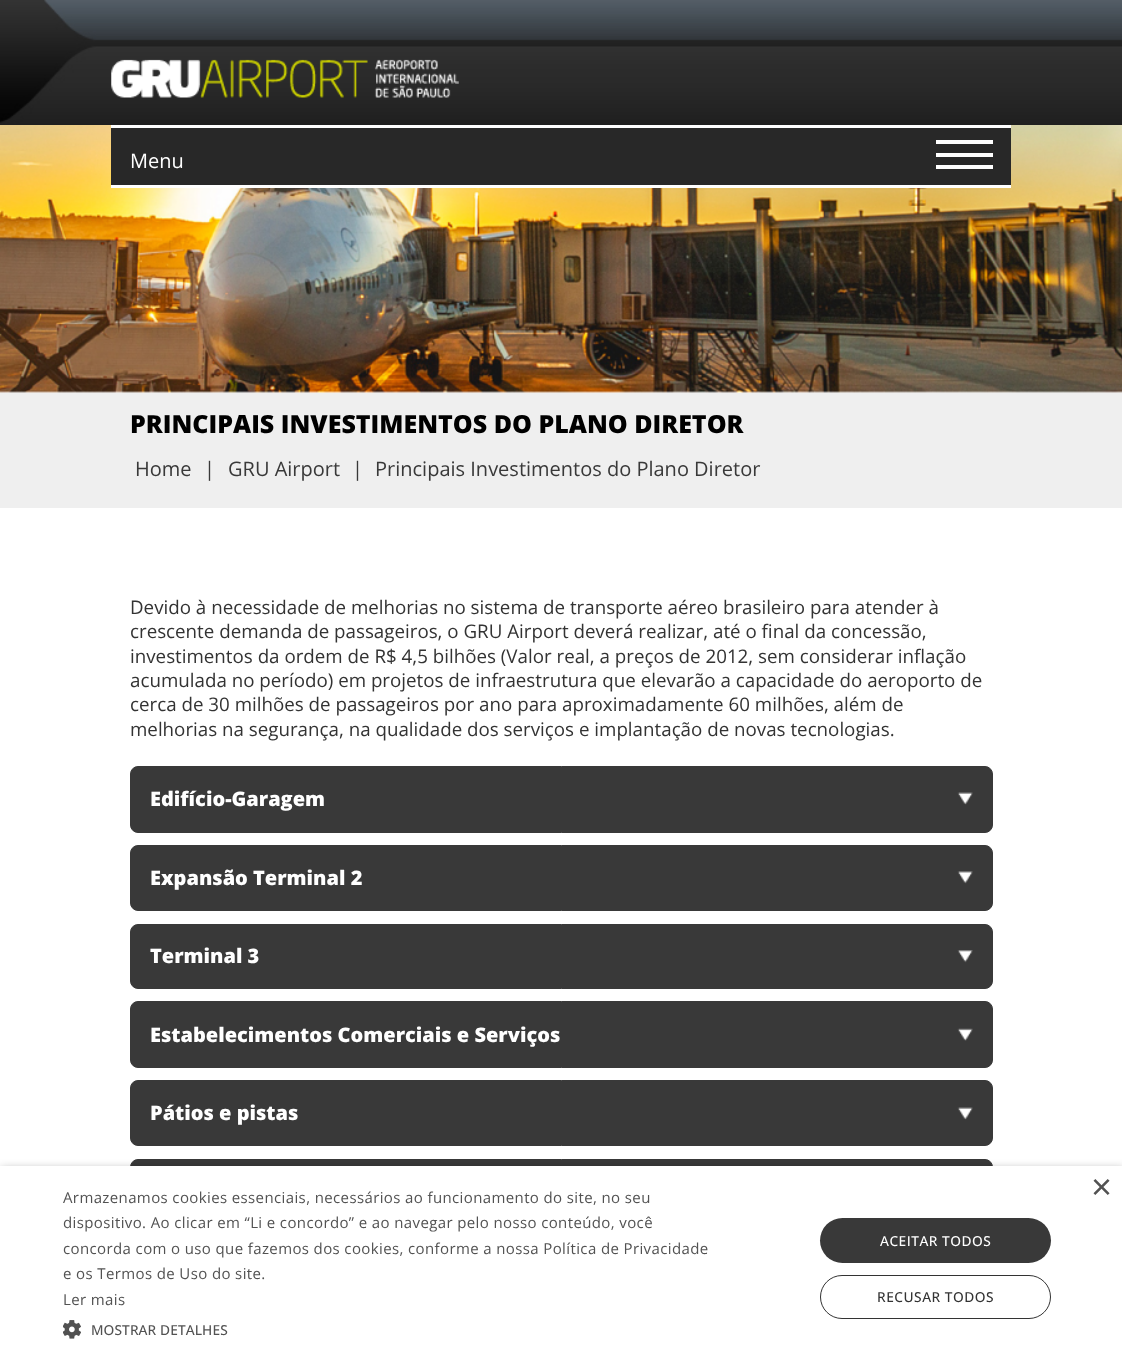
async function draw(canvas) {
	canvas.width = 1122;
	canvas.height = 1369;
	const c = canvas.getContext('2d');
	c.miterLimit = 4;
	c.fontKerning = 'normal';
	async function loadImage(src) {
		const img = new Image();
		img.src = src;
		await img.decode();
		return img;
	}

	c.fillStyle = '#fff';
	c.fillRect(0, 0, 1122, 1369);
	c.drawImage(await loadImage('img1.png'), 0, 0, 1122, 125);
	c.drawImage(await loadImage('img2.png'), 111, 59, 348, 39);
	c.drawImage(await loadImage('img3.png'), 0, 125, 1122, 268);
	for (const [x, y, w, h, color] of [
		[111, 128, 900, 57, '#282828'],
		[111, 125, 900, 3, '#fff'],
		[111, 185, 900, 3, '#fff'],
	]) {
		c.fillStyle = color;
		c.fillRect(x, y, w, h);
	}
	c.font = '20px Open Sans';
	c.fillText('Menu', 130, 168);
	for (const [x, y, w, h, color] of [
		[936, 140, 57, 4, '#fff'],
		[936, 153, 57, 4, '#fff'],
		[936, 165, 57, 4, '#fff'],
		[0, 393, 1122, 115, '#efefef'],
	]) {
		c.fillStyle = color;
		c.fillRect(x, y, w, h);
	}
	c.font = '800 25px Open Sans';
	c.fillStyle = '#000';
	c.fillText('PRINCIPAIS INVESTIMENTOS DO PLANO DIRETOR', 130, 433);
	c.font = '20px Open Sans';
	c.fillStyle = '#393939';
	for (const [text, x, y] of [
		['Home', 135, 476],
		['|', 204, 476],
		['GRU Airport', 228, 476],
		['|', 352, 476],
		['Principais Investimentos do Plano Diretor', 375, 476],
	]) {
		c.fillText(text, x, y);
	}
	c.font = '18.75px Open Sans';
	c.fillStyle = '#333';
	for (const [text, x, y] of [
		['Devido à necessidade de melhorias no sistema de transporte aéreo brasileiro para atender à', 130, 614],
		['crescente demanda de passageiros, o GRU Airport deverá realizar, até o final da concessão,', 130, 638],
		['investimentos da ordem de R$ 4,5 bilhões (Valor real, a preços de 2012, sem considerar inflação', 130, 663],
		['acumulada no período) em projetos de infraestrutura que elevarão a capacidade do aeroporto de', 130, 687],
		['cerca de 30 milhões de passageiros por ano para aproximadamente 60 milhões, além de', 130, 711],
		['melhorias na segurança, na qualidade dos serviços e implantação de novas tecnologias.', 130, 736],
	]) {
		c.fillText(text, x, y);
	}
	c.fillStyle = '#393939';
	c.beginPath();
	c.roundRect(130.5, 766.5, 862, 66, 7.5);
	c.fill();
	c.strokeStyle = '#393939';
	c.stroke();
	c.font = '800 20px Open Sans';
	c.fillStyle = '#fff';
	c.fillText('Edifício-Garagem', 150, 806);
	c.drawImage(await loadImage('img4.png'), 957, 792, 16, 13);
	c.fillStyle = '#393939';
	c.beginPath();
	c.roundRect(130.5, 845.5, 862, 65, 7.5);
	c.fill();
	c.stroke();
	c.fillStyle = '#fff';
	c.fillText('Expansão Terminal 2', 150, 885);
	c.drawImage(await loadImage('img5.png'), 957, 871, 16, 13);
	c.fillStyle = '#393939';
	c.beginPath();
	c.roundRect(130.5, 924.5, 862, 64, 7.5);
	c.fill();
	c.stroke();
	c.fillStyle = '#fff';
	c.fillText('Terminal 3', 150, 963);
	c.drawImage(await loadImage('img6.png'), 957, 950, 16, 13);
	c.fillStyle = '#393939';
	c.beginPath();
	c.roundRect(130.5, 1001.5, 862, 66, 7.5);
	c.fill();
	c.stroke();
	c.fillStyle = '#fff';
	c.fillText('Estabelecimentos Comerciais e Serviços', 150, 1042);
	c.drawImage(await loadImage('img7.png'), 957, 1028, 16, 13);
	c.fillStyle = '#393939';
	c.beginPath();
	c.roundRect(130.5, 1080.5, 862, 65, 7.5);
	c.fill();
	c.stroke();
	c.fillStyle = '#fff';
	c.fillText('Pátios e pistas', 150, 1120);
	c.drawImage(await loadImage('img4.png'), 957, 1107, 16, 13);
	c.fillStyle = '#393939';
	c.beginPath();
	c.roundRect(130.5, 1159.5, 862, 65, 7.5);
	c.fill();
	c.stroke();
	c.fillStyle = '#00000059';
	c.filter = 'blur(5px)';
	c.beginPath();
	c.rect(1, 1169, 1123, 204);
	c.fill();
	c.filter = 'none';
	c.fillStyle = '#fff';
	c.fillRect(0, 1166, 1122, 203);
	c.font = '36px Liberation Sans';
	c.fillStyle = '#525252';
	c.fillText('×', 1091, 1199);
	c.letterSpacing = '0.38px';
	c.font = '15px Open Sans';
	for (const [text, x, y] of [
		['Armazenamos cookies essenciais, necessários ao funcionamento do site, no seu', 63, 1203],
		['dispositivo. Ao clicar em “Li e concordo” e ao navegar pelo nosso conteúdo, você', 63, 1228],
		['concorda com o uso que fazemos dos cookies, conforme a nossa Política de Privacidade', 63, 1254],
		['e os Termos de Uso do site.', 63, 1279],
		['Ler mais', 63, 1305],
	]) {
		c.fillText(text, x, y);
	}
	c.drawImage(await loadImage('img8.png'), 63, 1320, 18, 19);
	c.letterSpacing = '0.1px';
	c.font = '500 13.75px Open Sans';
	c.fillText('MOSTRAR DETALHES', 91, 1335);
	c.fillStyle = '#393939';
	c.beginPath();
	c.roundRect(820, 1218, 231, 45, 22.5);
	c.fill();
	c.letterSpacing = '0.5px';
	c.fillStyle = '#fff';
	c.fillText('ACEITAR TODOS', 880, 1246);
	c.beginPath();
	c.roundRect(820.5, 1275.5, 230, 43, 21.5);
	c.strokeStyle = '#333';
	c.stroke();
	c.fillStyle = '#333';
	c.fillText('RECUSAR TODOS', 877, 1302);
}

draw(document.querySelector('canvas'));
